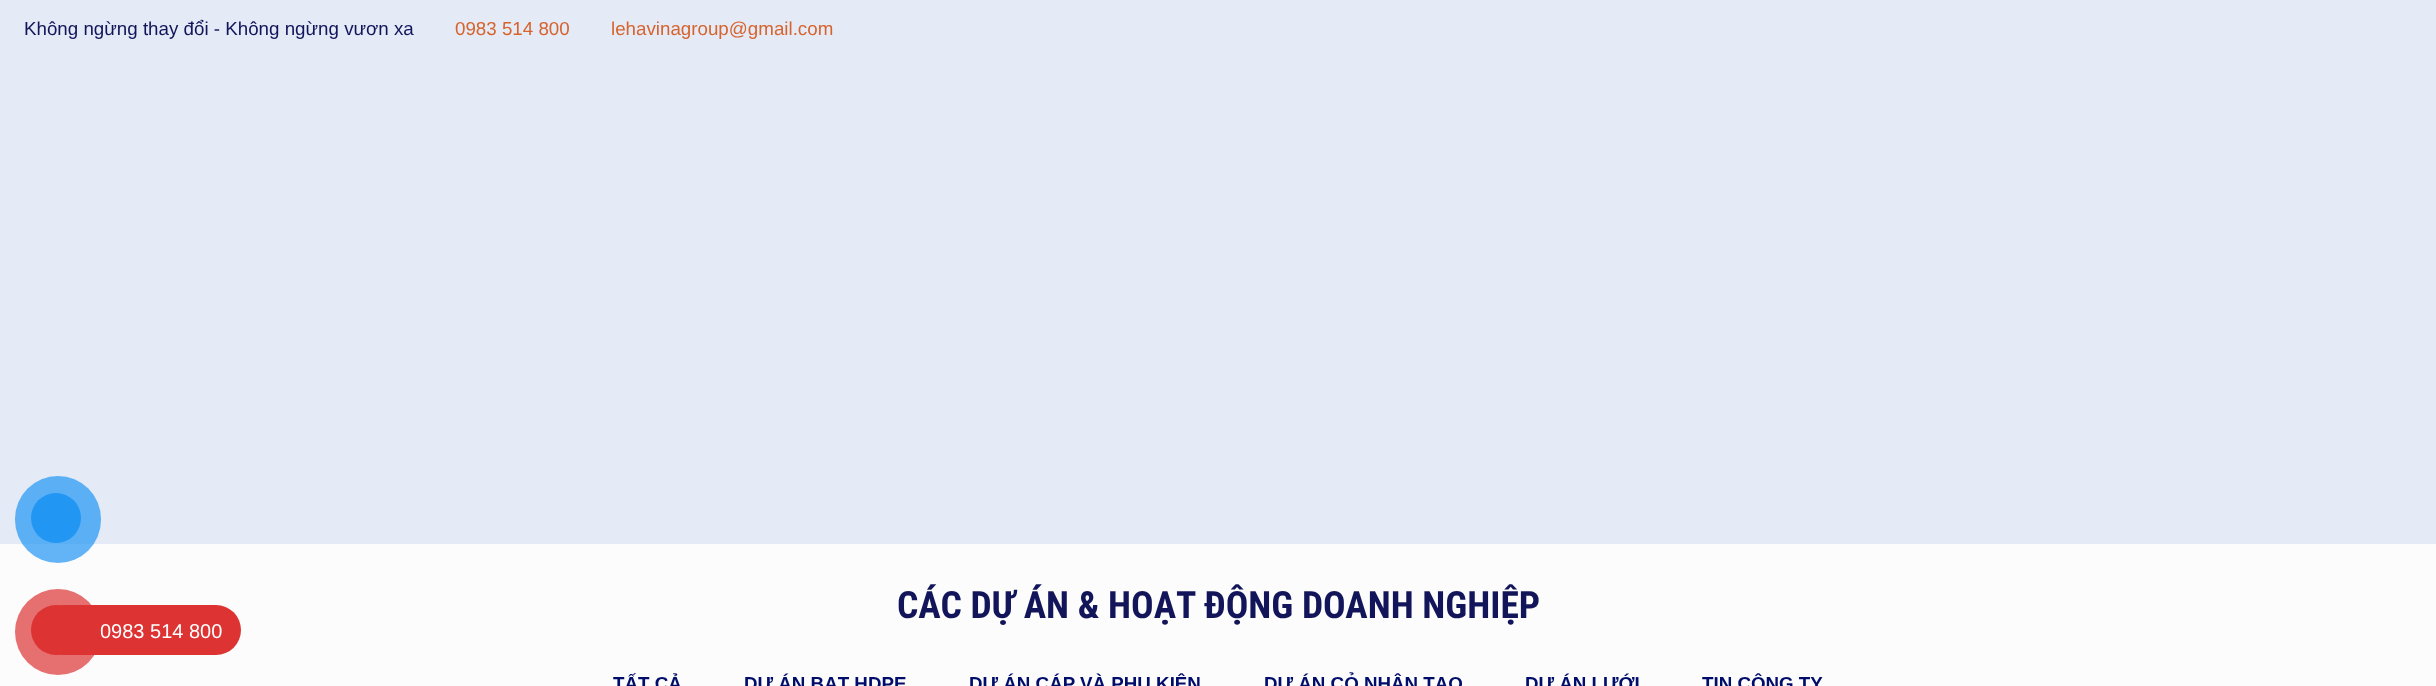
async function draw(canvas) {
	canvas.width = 2436;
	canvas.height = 686;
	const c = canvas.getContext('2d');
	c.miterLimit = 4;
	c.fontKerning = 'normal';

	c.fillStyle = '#fcfcfc';
	c.fillRect(0, 0, 2436, 686);
	c.fillStyle = '#e4ebf7';
	c.fillRect(0, 0, 2436, 544);
	c.font = '18.75px Liberation Sans';
	c.fillStyle = '#121559';
	c.fillText('Không ngừng thay đổi - Không ngừng vươn xa', 24, 35);
	c.fillStyle = '#d7632d';
	c.fillText('0983 514 800', 455, 35);
	c.fillText('lehavinagroup@gmail.com', 611, 35);
	c.font = 'bold 37.5px Roboto Condensed';
	c.fillStyle = '#121559';
	c.fillText('CÁC DỰ ÁN & HOẠT ĐỘNG DOANH NGHIỆP', 897, 618);
	c.font = 'bold 18.75px Liberation Sans';
	c.fillStyle = '#000d6b';
	for (const [text, x, y] of [
		['TẤT CẢ', 613, 690],
		['DỰ ÁN BẠT HDPE', 744, 690],
		['DỰ ÁN CÁP VÀ PHỤ KIỆN', 969, 690],
		['DỰ ÁN CỎ NHÂN TẠO', 1264, 690],
		['DỰ ÁN LƯỚI', 1525, 690],
		['TIN CÔNG TY', 1702, 690],
	]) {
		c.fillText(text, x, y);
	}
	c.fillStyle = '#2196f3b3';
	c.beginPath();
	c.roundRect(15, 476, 86, 87, 43);
	c.fill();
	c.fillStyle = '#2196f3';
	c.beginPath();
	c.arc(56, 518, 25, 0, 2 * Math.PI);
	c.fill();
	c.fillStyle = '#d33';
	c.beginPath();
	c.roundRect(38, 605, 203, 50, 25);
	c.fill();
	c.font = '20px Liberation Sans';
	c.fillStyle = '#fff';
	c.fillText('0983 514 800', 100, 638);
	c.fillStyle = '#dd3333b3';
	c.beginPath();
	c.arc(58, 632, 43, 0, 2 * Math.PI);
	c.fill();
	c.fillStyle = '#d33';
	c.beginPath();
	c.arc(56, 630, 25, 0, 2 * Math.PI);
	c.fill();
}

draw(document.querySelector('canvas'));
